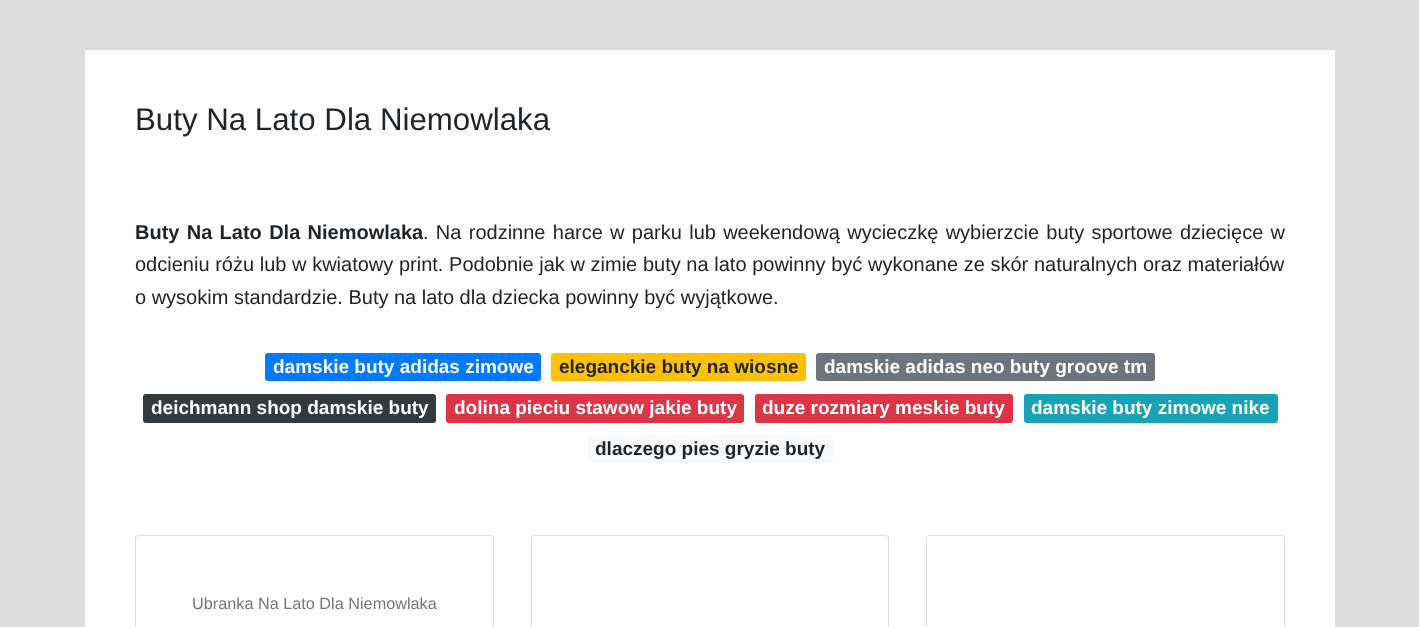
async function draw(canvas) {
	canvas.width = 1419;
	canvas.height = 627;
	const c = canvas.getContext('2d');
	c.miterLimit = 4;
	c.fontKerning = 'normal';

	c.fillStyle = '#ddd';
	c.fillRect(0, 0, 1419, 627);
	c.fillStyle = '#fff';
	c.fillRect(85, 50, 1250, 577);
	c.font = '31.25px Liberation Sans';
	c.fillStyle = '#212529';
	c.fillText('Buty Na Lato Dla Niemowlaka', 135, 130);
	c.wordSpacing = '1.75px';
	c.font = 'bold 20px Liberation Sans';
	c.fillText('Buty Na Lato Dla Niemowlaka', 135, 239);
	c.font = '20px Liberation Sans';
	c.fillText('. Na rodzinne harce w parku lub weekendową wycieczkę wybierzcie buty sportowe dziecięce w', 423, 239);
	c.wordSpacing = '0.1px';
	c.fillText('odcieniu różu lub w kwiatowy print. Podobnie jak w zimie buty na lato powinny być wykonane ze skór naturalnych oraz materiałów', 135, 271);
	c.wordSpacing = '0px';
	c.fillText('o wysokim standardzie. Buty na lato dla dziecka powinny być wyjątkowe.', 135, 304);
	c.fillStyle = '#007bff';
	c.beginPath();
	c.roundRect(265, 353, 276, 28, 3);
	c.fill();
	c.font = 'bold 19px Liberation Sans';
	c.fillStyle = '#fff';
	c.fillText('damskie buty adidas zimowe', 273, 373);
	c.fillStyle = '#ffc107';
	c.beginPath();
	c.roundRect(551, 353, 255, 28, 3);
	c.fill();
	c.fillStyle = '#212529';
	c.fillText('eleganckie buty na wiosne', 559, 373);
	c.fillStyle = '#6c757d';
	c.beginPath();
	c.roundRect(816, 353, 339, 28, 3);
	c.fill();
	c.fillStyle = '#fff';
	c.fillText('damskie adidas neo buty groove tm', 824, 373);
	c.fillStyle = '#343a40';
	c.beginPath();
	c.roundRect(143, 394, 293, 29, 3);
	c.fill();
	c.fillStyle = '#fff';
	c.fillText('deichmann shop damskie buty', 151, 414);
	c.fillStyle = '#dc3545';
	c.beginPath();
	c.roundRect(446, 394, 298, 29, 3);
	c.fill();
	c.fillStyle = '#fff';
	c.fillText('dolina pieciu stawow jakie buty', 454, 414);
	c.fillStyle = '#dc3545';
	c.beginPath();
	c.roundRect(755, 394, 258, 29, 3);
	c.fill();
	c.fillStyle = '#fff';
	c.fillText('duze rozmiary meskie buty', 762, 414);
	c.fillStyle = '#17a2b8';
	c.beginPath();
	c.roundRect(1024, 394, 254, 29, 3);
	c.fill();
	c.fillStyle = '#fff';
	c.fillText('damskie buty zimowe nike', 1031, 414);
	c.fillStyle = '#f8f9fa';
	c.beginPath();
	c.roundRect(588, 435, 245, 28, 3);
	c.fill();
	c.fillStyle = '#212529';
	c.fillText('dlaczego pies gryzie buty', 595, 455);
	c.beginPath();
	c.roundRect(135.5, 535.5, 358, 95, 2.5);
	c.strokeStyle = '#dfdfdf';
	c.stroke();
	c.font = '16.25px Liberation Sans';
	c.fillStyle = '#777';
	c.fillText('Ubranka Na Lato Dla Niemowlaka', 192, 609);
	c.beginPath();
	c.roundRect(531.5, 535.5, 357, 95, 2.5);
	c.stroke();
	c.beginPath();
	c.roundRect(926.5, 535.5, 358, 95, 2.5);
	c.stroke();
}

draw(document.querySelector('canvas'));
